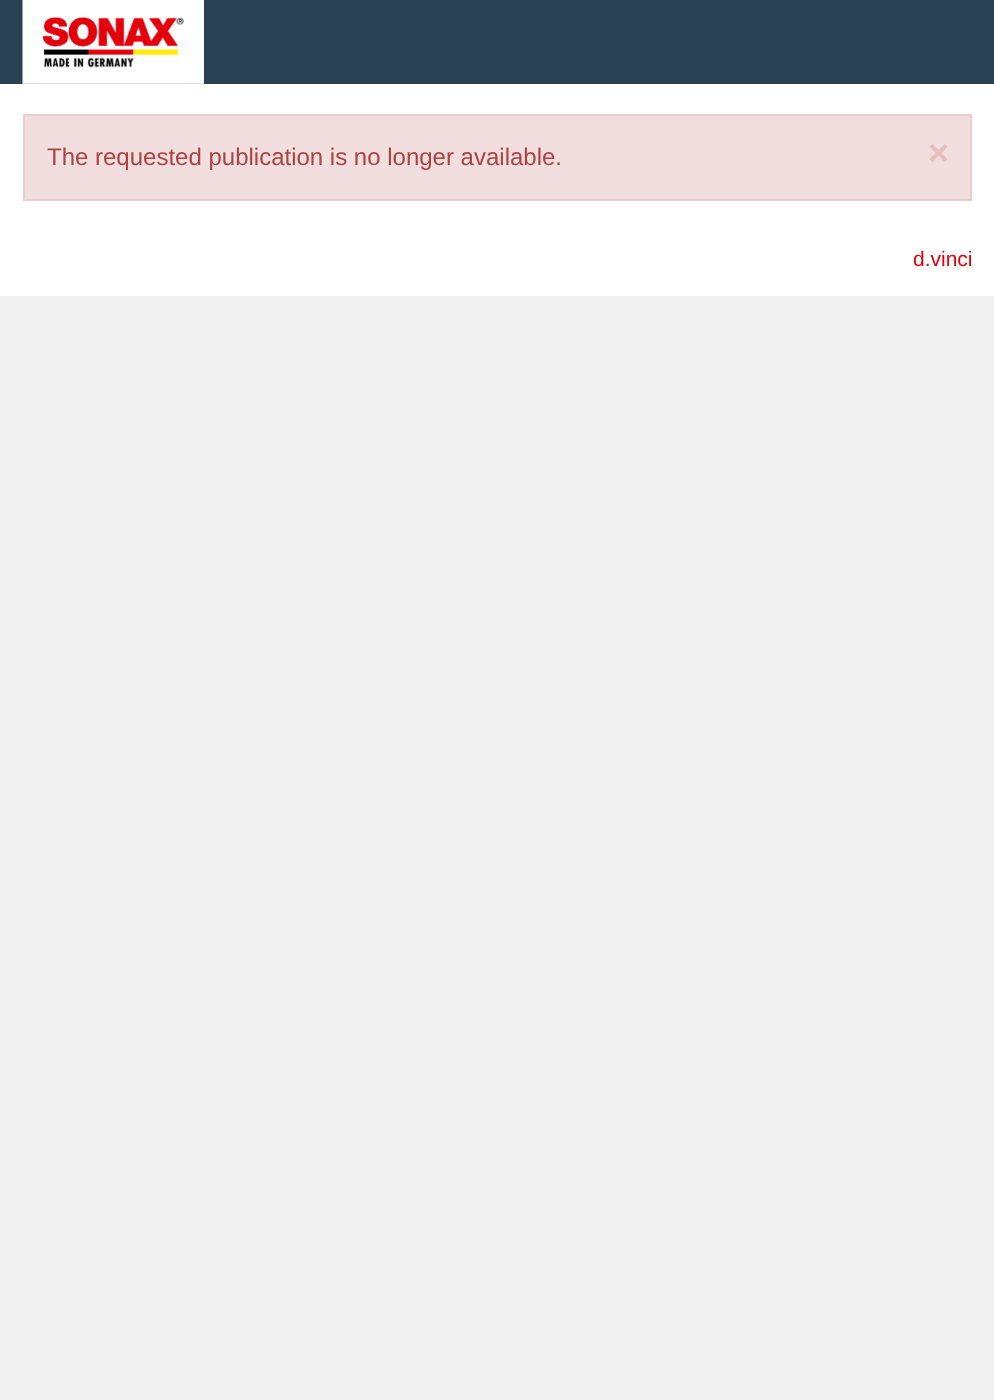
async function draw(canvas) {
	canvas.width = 994;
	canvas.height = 1400;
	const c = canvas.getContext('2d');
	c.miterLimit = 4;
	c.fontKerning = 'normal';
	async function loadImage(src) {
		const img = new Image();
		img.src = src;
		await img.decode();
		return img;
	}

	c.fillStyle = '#f1f1f1';
	c.fillRect(0, 0, 994, 1400);
	c.fillStyle = '#2a4153';
	c.fillRect(0, 0, 994, 84);
	c.drawImage(await loadImage('img1.png'), 22, 0, 182, 84);
	c.fillStyle = '#fff';
	c.fillRect(0, 84, 994, 212);
	c.fillStyle = '#f2dede';
	c.beginPath();
	c.rect(24, 115, 947, 85);
	c.fill();
	c.strokeStyle = '#ebccd1';
	c.lineWidth = 2;
	c.stroke();
	c.font = '24px Liberation Sans';
	c.fillStyle = '#a94442';
	c.fillText('The requested publication is no longer available.', 47, 165);
	c.font = 'bold 36px Liberation Sans';
	c.fillStyle = '#e3bfbf';
	c.fillText('×', 928, 165);
	c.font = '21px Liberation Sans';
	c.fillStyle = '#e3000b';
	c.fillText('d.vinci', 913, 266);
}

draw(document.querySelector('canvas'));
